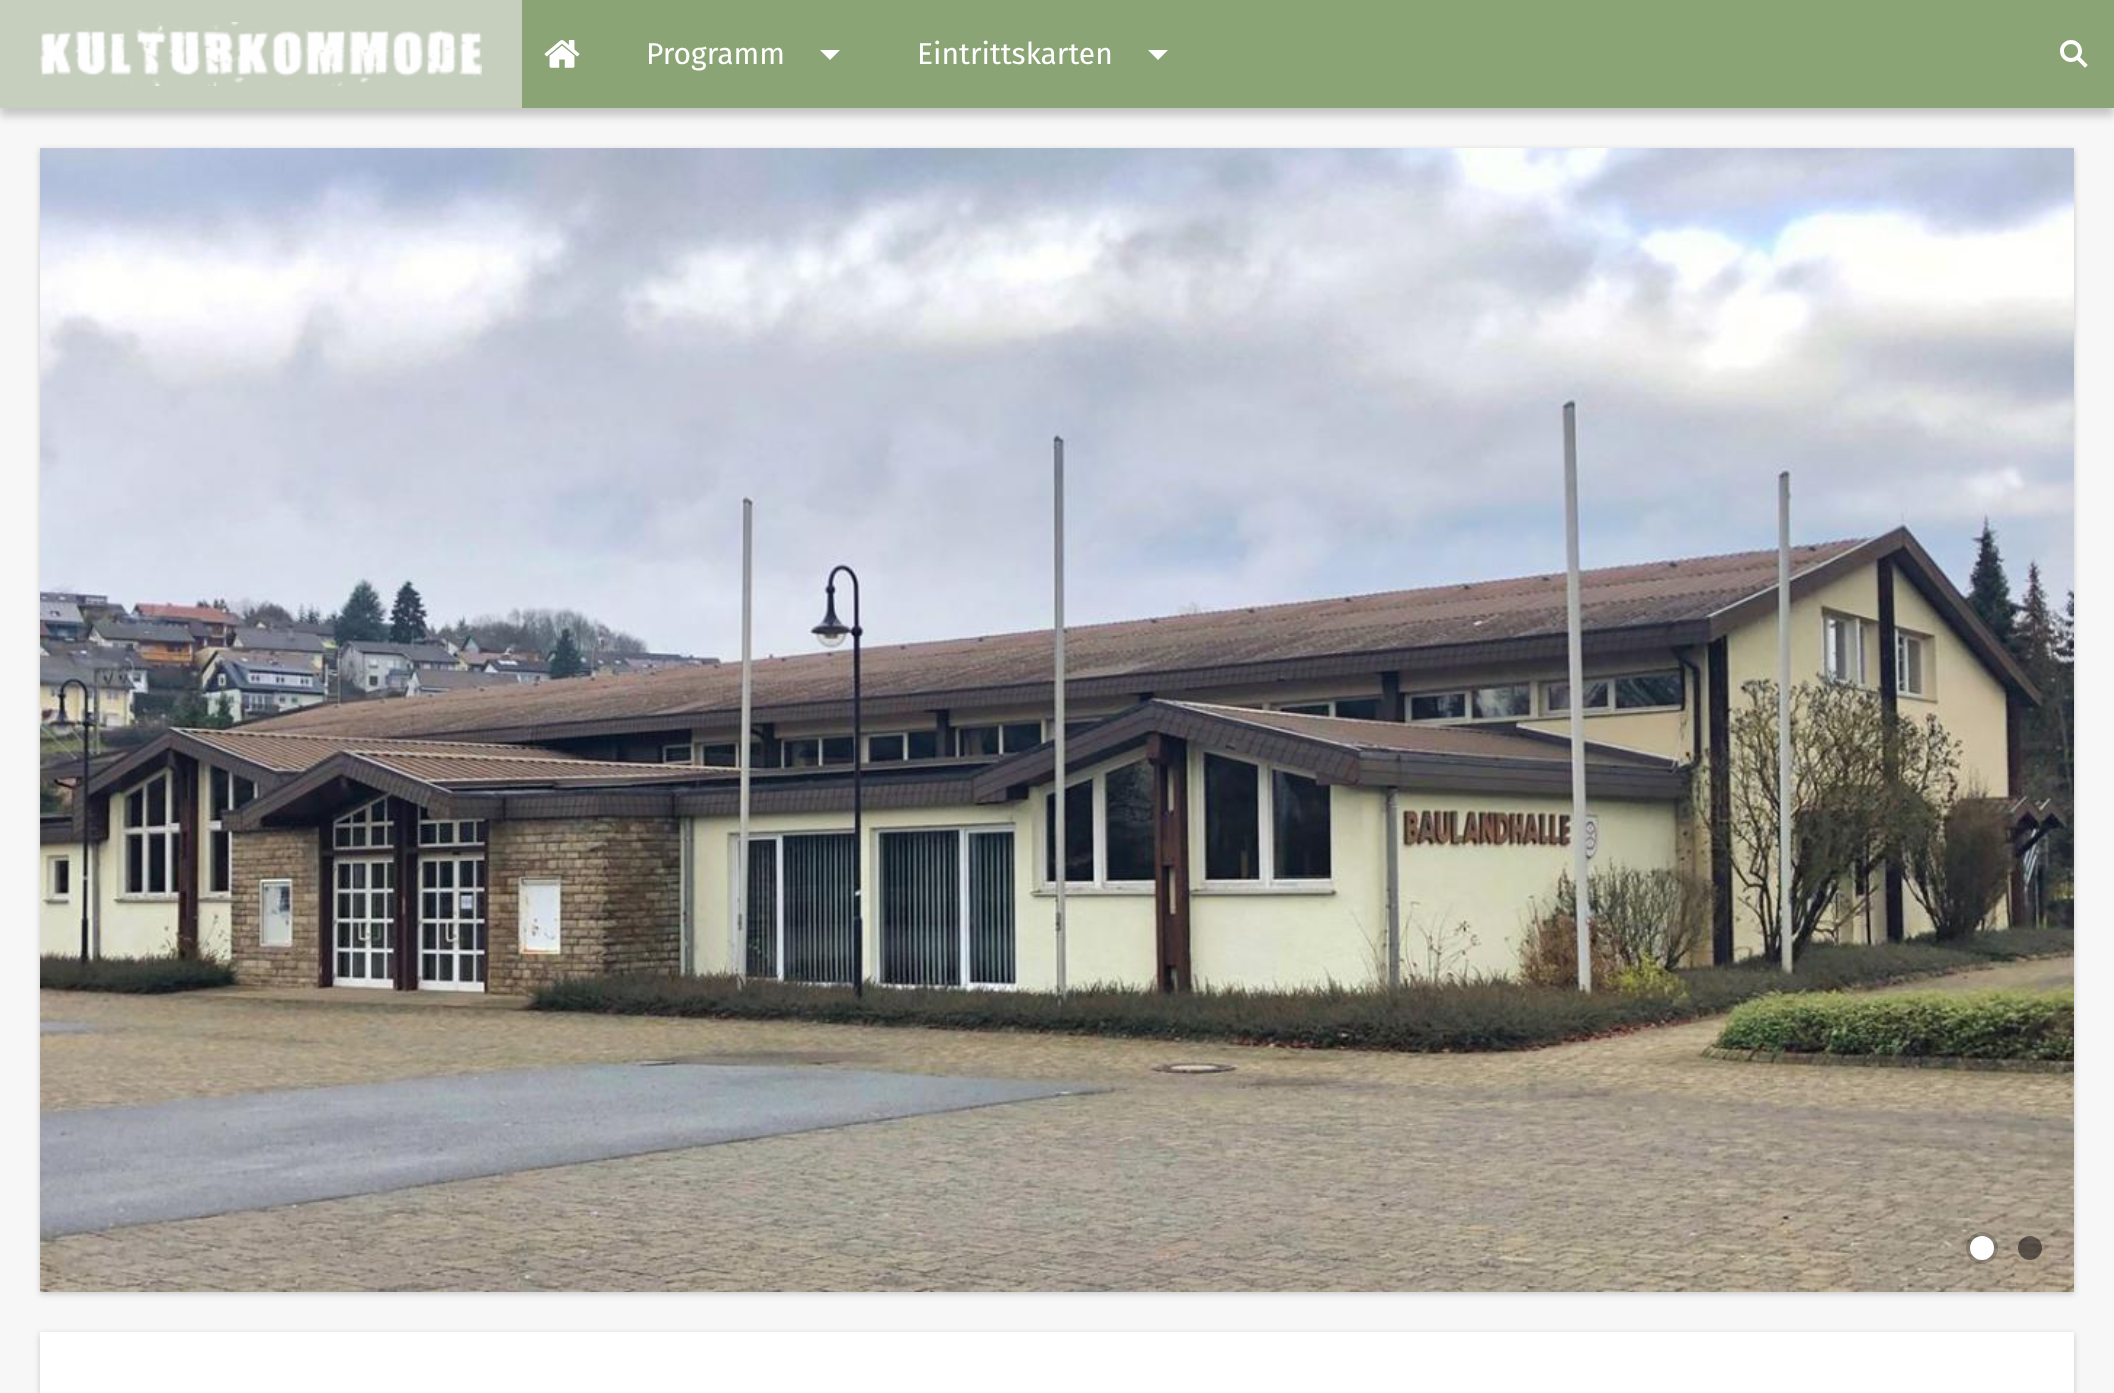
async function draw(canvas) {
	canvas.width = 2114;
	canvas.height = 1393;
	const c = canvas.getContext('2d');
	c.miterLimit = 4;
	c.fontKerning = 'normal';
	async function loadImage(src) {
		const img = new Image();
		img.src = src;
		await img.decode();
		return img;
	}

	c.fillStyle = '#f7f7f7';
	c.fillRect(0, 0, 2114, 1393);
	c.fillStyle = '#00000033';
	c.filter = 'blur(4px)';
	c.beginPath();
	c.rect(0, 8, 2114, 108);
	c.fill();
	c.filter = 'none';
	c.fillStyle = '#8ba475';
	c.fillRect(522, 0, 1592, 108);
	c.fillStyle = '#c6cebe';
	c.fillRect(0, 0, 522, 108);
	c.drawImage(await loadImage('img1.png'), 40, 22, 442, 64);
	c.drawImage(await loadImage('img2.png'), 544, 40, 36, 28);
	c.drawImage(await loadImage('img3.png'), 820, 50, 20, 10);
	c.font = '30px Fira Sans';
	c.fillStyle = '#fff';
	c.fillText('Programm', 646, 64);
	c.drawImage(await loadImage('img3.png'), 1148, 50, 20, 10);
	c.fillText('Eintrittskarten', 917, 64);
	c.drawImage(await loadImage('img4.png'), 2060, 40, 28, 28);
	c.fillStyle = '#00000033';
	c.filter = 'blur(3px)';
	c.beginPath();
	c.rect(40, 150, 2034, 1144);
	c.fill();
	c.filter = 'none';
	c.drawImage(await loadImage('img5.png'), 40, 148, 2034, 1144);
	c.drawImage(await loadImage('img6.png'), 1966, 1232, 32, 32);
	c.drawImage(await loadImage('img7.png'), 2018, 1236, 24, 24);
	c.filter = 'blur(3px)';
	c.beginPath();
	c.rect(40, 1334, 2034, 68);
	c.fill();
	c.filter = 'none';
	c.fillStyle = '#fff';
	c.fillRect(40, 1332, 2034, 61);
}

draw(document.querySelector('canvas'));
